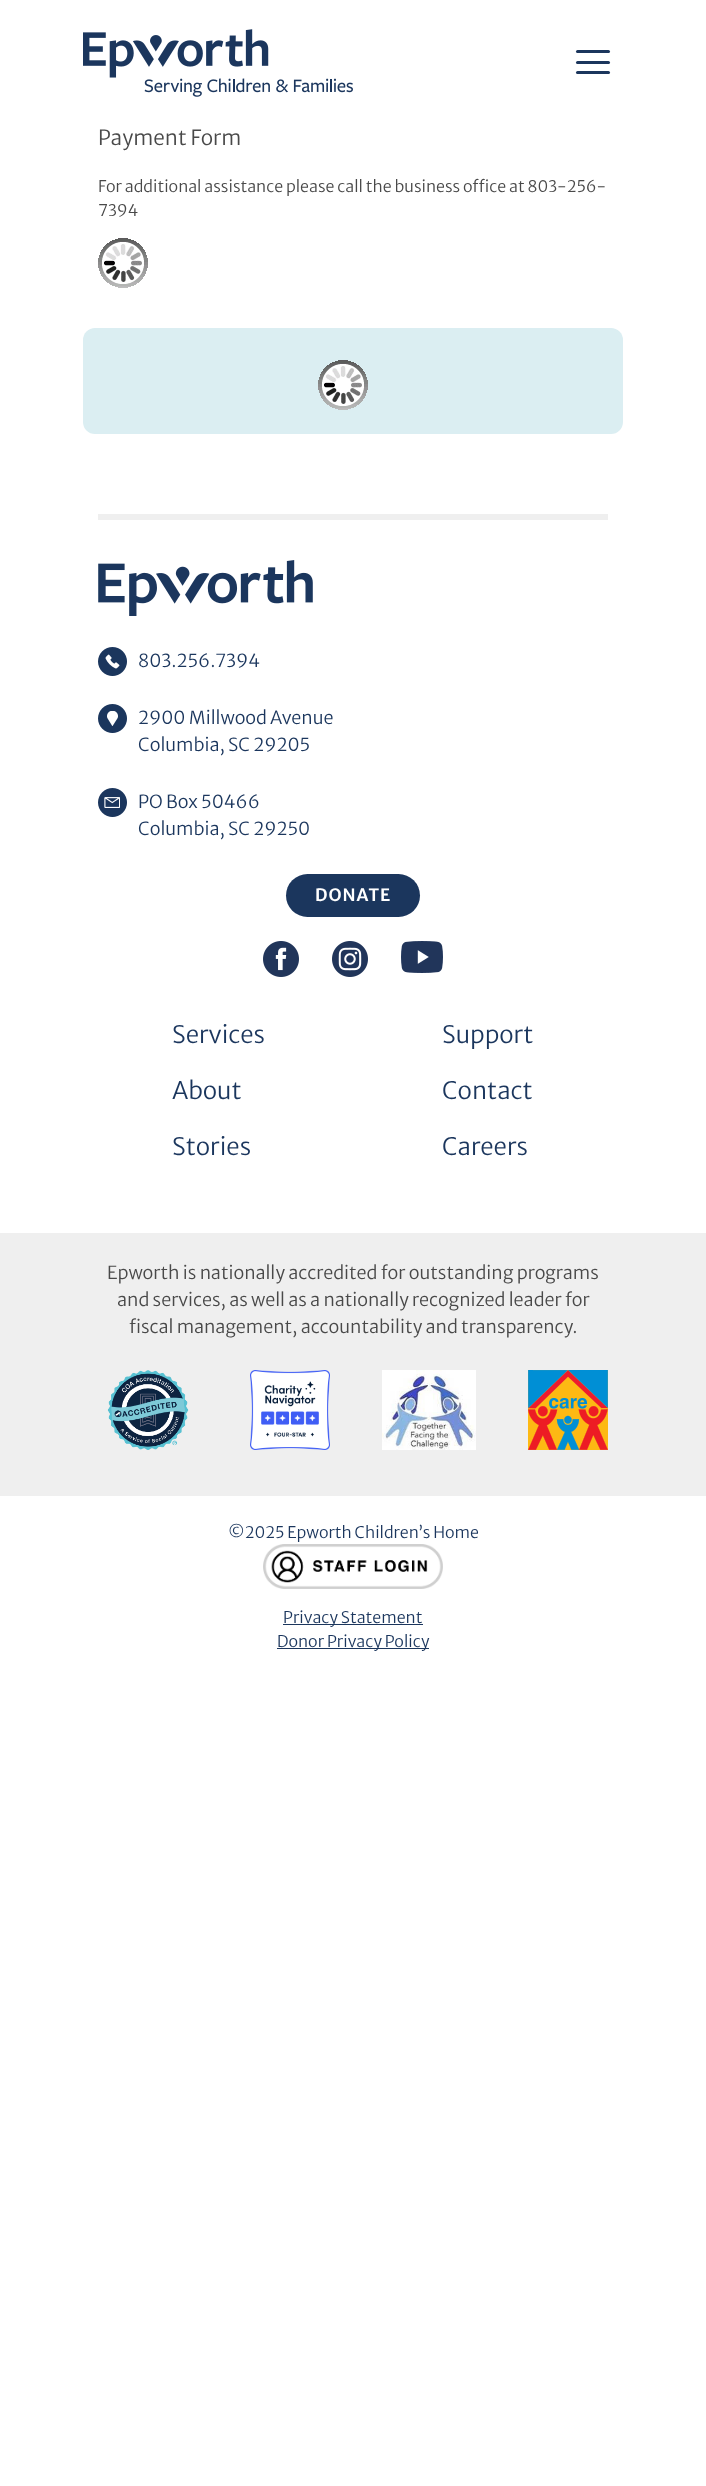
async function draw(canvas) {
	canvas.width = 706;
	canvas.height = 2486;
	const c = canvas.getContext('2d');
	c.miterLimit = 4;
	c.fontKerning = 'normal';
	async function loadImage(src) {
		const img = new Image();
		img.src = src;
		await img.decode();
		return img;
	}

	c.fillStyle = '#fff';
	c.fillRect(0, 0, 706, 2486);
	c.drawImage(await loadImage('img1.png'), 83, 29, 270, 68);
	c.fillStyle = '#1b365d';
	c.beginPath();
	c.roundRect(576, 50, 34, 3, 1.5);
	c.fill();
	c.beginPath();
	c.roundRect(576, 61, 34, 3, 1.5);
	c.fill();
	c.beginPath();
	c.roundRect(576, 71, 34, 3, 1.5);
	c.fill();
	c.font = '300 20.75px Merriweather Sans';
	c.fillStyle = '#494949';
	c.fillText('Payment Form', 98, 145);
	c.font = '300 16px Merriweather Sans';
	c.fillText('For additional assistance please call the business office at 803-256-', 98, 192);
	c.fillText('7394', 98, 216);
	c.drawImage(await loadImage('img2.png'), 98, 238, 50, 50);
	c.fillStyle = '#dbeef2';
	c.beginPath();
	c.roundRect(83, 328, 540, 106, 12);
	c.fill();
	c.drawImage(await loadImage('img3.png'), 318, 360, 50, 50);
	c.fillStyle = '#efefef';
	c.fillRect(98, 514, 510, 6);
	c.drawImage(await loadImage('img4.png'), 98, 560, 215, 56);
	c.drawImage(await loadImage('img5.png'), 98, 647, 29, 29);
	c.font = '300 18px Merriweather Sans';
	c.fillStyle = '#1b365d';
	c.fillText('803.256.7394', 138, 667);
	c.drawImage(await loadImage('img6.png'), 98, 704, 29, 29);
	c.fillText('2900 Millwood Avenue', 138, 724);
	c.fillText('Columbia, SC 29205', 138, 751);
	c.drawImage(await loadImage('img7.png'), 98, 788, 29, 29);
	c.fillText('PO Box 50466', 138, 808);
	c.fillText('Columbia, SC 29250', 138, 835);
	c.beginPath();
	c.roundRect(286, 874, 134, 43, 21.5);
	c.fill();
	c.letterSpacing = '1px';
	c.font = '600 17px Merriweather Sans';
	c.fillStyle = '#fff';
	c.fillText('DONATE', 315, 901);
	c.drawImage(await loadImage('img8.png'), 263, 941, 36, 36);
	c.drawImage(await loadImage('img9.png'), 332, 941, 36, 36);
	c.drawImage(await loadImage('img10.png'), 401, 941, 42, 32);
	c.letterSpacing = '0px';
	c.font = '300 24px Merriweather Sans';
	c.fillStyle = '#1b365d';
	for (const [text, x, y] of [
		['Services', 172, 1043],
		['About', 172, 1099],
		['Stories', 172, 1155],
		['Support', 442, 1043],
		['Contact', 442, 1099],
		['Careers', 442, 1155],
	]) {
		c.fillText(text, x, y);
	}
	c.fillStyle = '#efefef';
	c.fillRect(0, 1233, 706, 263);
	c.font = '300 18px Merriweather Sans';
	c.fillStyle = '#494949';
	for (const [text, x, y] of [
		['Epworth is nationally accredited for outstanding programs', 107, 1279],
		['and services, as well as a nationally recognized leader for', 117, 1306],
		['fiscal management, accountability and transparency.', 129, 1333],
	]) {
		c.fillText(text, x, y);
	}
	c.drawImage(await loadImage('img11.png'), 107, 1370, 82, 80);
	c.drawImage(await loadImage('img12.png'), 250, 1370, 80, 80);
	c.drawImage(await loadImage('img13.png'), 382, 1370, 94, 80);
	c.drawImage(await loadImage('img14.png'), 528, 1370, 80, 80);
	c.font = '300 16px Merriweather Sans';
	c.fillStyle = '#1b365d';
	c.fillText('©2025 Epworth Children’s Home', 228, 1538);
	c.drawImage(await loadImage('img15.png'), 263, 1544, 180, 45);
	c.fillRect(283, 1624, 140, 1);
	c.fillText('Privacy Statement', 283, 1623);
	c.fillRect(277, 1648, 152, 1);
	c.fillText('Donor Privacy Policy', 277, 1647);
}

draw(document.querySelector('canvas'));
